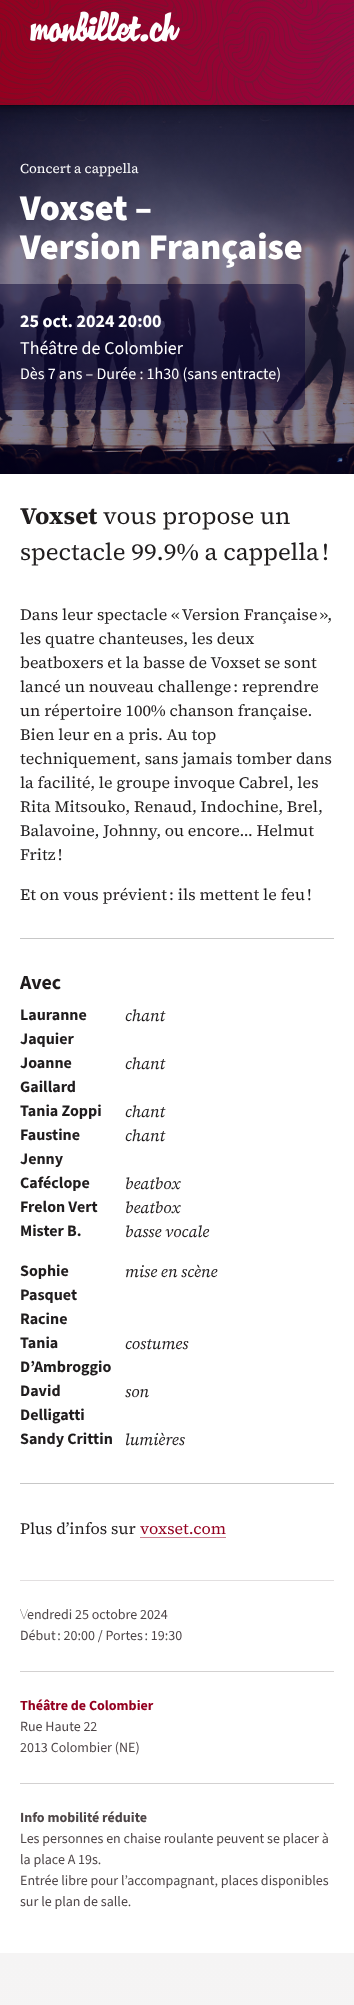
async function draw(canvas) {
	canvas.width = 354;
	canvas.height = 2005;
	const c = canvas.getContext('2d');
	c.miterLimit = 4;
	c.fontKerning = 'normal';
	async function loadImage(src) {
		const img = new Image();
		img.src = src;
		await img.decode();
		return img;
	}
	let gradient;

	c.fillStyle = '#fff';
	c.fillRect(0, 0, 354, 2005);
	c.drawImage(await loadImage('img3.png'), 0, 105, 354, 369);
	c.fillStyle = '#0000001a';
	c.filter = 'blur(8px)';
	c.beginPath();
	c.rect(-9, -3, 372, 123);
	c.fill();
	c.filter = 'none';
	c.filter = 'blur(4px)';
	c.beginPath();
	c.rect(-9, -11, 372, 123);
	c.fill();
	c.filter = 'none';
	c.filter = 'blur(2px)';
	c.beginPath();
	c.rect(-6, -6, 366, 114);
	c.fill();
	c.filter = 'none';
	c.filter = 'blur(1px)';
	c.beginPath();
	c.rect(-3, -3, 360, 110);
	c.fill();
	c.filter = 'none';
	c.filter = 'blur(0.5px)';
	c.beginPath();
	c.rect(-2, -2, 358, 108);
	c.fill();
	c.filter = 'none';
	c.drawImage(await loadImage('img1.png'), 0, 0, 354, 105);
	c.drawImage(await loadImage('img2.png'), 30, 11, 150, 31);
	c.font = '13.5px "Source Serif 4"';
	c.fillStyle = '#fff';
	c.fillText('Concert a cappella', 20, 173);
	c.font = '900 36px "Source Sans 3"';
	c.fillText('Voxset –', 20, 220);
	c.fillText('Version Française', 20, 259);
	c.fillStyle = '#06012f80';
	c.beginPath();
	c.roundRect(-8, 284, 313, 126, 8);
	c.fill();
	c.font = 'bold 18px "Source Sans 3"';
	c.fillStyle = '#fff';
	c.fillText('25 oct. 2024 20:00', 20, 327);
	c.font = '18px "Source Sans 3"';
	c.fillText('Théâtre de Colombier', 20, 354);
	c.font = '16px "Source Sans 3"';
	c.fillText('Dès 7 ans – Durée : 1h30 (sans entracte)', 20, 379);
	c.font = 'bold 24px "Source Serif 4"';
	c.fillStyle = '#201d1e';
	c.fillText('Voxset', 20, 524);
	c.font = '24px "Source Serif 4"';
	c.fillText('vous propose un', 103, 524);
	c.fillText('spectacle 99.9% a cappella !', 20, 560);
	c.font = '16px "Source Serif 4"';
	for (const [text, x, y] of [
		['Dans leur spectacle « Version Française »,', 20, 620],
		['les quatre chanteuses, les deux', 20, 644],
		['beatboxers et la basse de Voxset se sont', 20, 668],
		['lancé un nouveau challenge : reprendre', 20, 692],
		['un répertoire 100% chanson française.', 20, 716],
		['Bien leur en a pris. Au top', 20, 740],
		['techniquement, sans jamais tomber dans', 20, 764],
		['la facilité, le groupe invoque Cabrel, les', 20, 788],
		['Rita Mitsouko, Renaud, Indochine, Brel,', 20, 812],
		['Balavoine, Johnny, ou encore… Helmut', 20, 836],
		['Fritz !', 20, 860],
		['Et on vous prévient : ils mettent le feu !', 20, 900],
	]) {
		c.fillText(text, x, y);
	}
	c.fillStyle = '#c7c7c7';
	c.fillRect(20, 938, 314, 1);
	c.font = 'bold 20px "Source Sans 3"';
	c.fillStyle = '#201d1e';
	c.fillText('Avec', 20, 989);
	c.font = 'bold 16px "Source Sans 3"';
	c.fillText('Lauranne', 20, 1020);
	c.fillText('Jaquier', 20, 1044);
	c.font = 'italic 16px "Source Serif 4"';
	c.fillText('chant', 125, 1021);
	c.font = 'bold 16px "Source Sans 3"';
	c.fillText('Joanne', 20, 1068);
	c.fillText('Gaillard', 20, 1092);
	c.font = 'italic 16px "Source Serif 4"';
	c.fillText('chant', 125, 1069);
	c.font = 'bold 16px "Source Sans 3"';
	c.fillText('Tania Zoppi', 20, 1116);
	c.font = 'italic 16px "Source Serif 4"';
	c.fillText('chant', 125, 1117);
	c.font = 'bold 16px "Source Sans 3"';
	c.fillText('Faustine', 20, 1140);
	c.fillText('Jenny', 20, 1164);
	c.font = 'italic 16px "Source Serif 4"';
	c.fillText('chant', 125, 1141);
	c.font = 'bold 16px "Source Sans 3"';
	c.fillText('Caféclope', 20, 1188);
	c.font = 'italic 16px "Source Serif 4"';
	c.fillText('beatbox', 125, 1189);
	c.font = 'bold 16px "Source Sans 3"';
	c.fillText('Frelon Vert', 20, 1212);
	c.font = 'italic 16px "Source Serif 4"';
	c.fillText('beatbox', 125, 1213);
	c.font = 'bold 16px "Source Sans 3"';
	c.fillText('Mister B.', 20, 1236);
	c.font = 'italic 16px "Source Serif 4"';
	c.fillText('basse vocale', 125, 1237);
	c.font = 'bold 16px "Source Sans 3"';
	for (const [text, x, y] of [
		['Sophie', 20, 1276],
		['Pasquet', 20, 1300],
		['Racine', 20, 1324],
	]) {
		c.fillText(text, x, y);
	}
	c.font = 'italic 16px "Source Serif 4"';
	c.fillText('mise en scène', 125, 1277);
	c.font = 'bold 16px "Source Sans 3"';
	c.fillText('Tania', 20, 1348);
	c.fillText('D’Ambroggio', 20, 1372);
	c.font = 'italic 16px "Source Serif 4"';
	c.fillText('costumes', 125, 1349);
	c.font = 'bold 16px "Source Sans 3"';
	c.fillText('David', 20, 1396);
	c.fillText('Delligatti', 20, 1420);
	c.font = 'italic 16px "Source Serif 4"';
	c.fillText('son', 125, 1397);
	c.font = 'bold 16px "Source Sans 3"';
	c.fillText('Sandy Crittin', 20, 1444);
	c.font = 'italic 16px "Source Serif 4"';
	c.fillText('lumières', 125, 1445);
	c.fillStyle = '#c7c7c7';
	c.fillRect(20, 1483, 314, 1);
	c.font = '16px "Source Serif 4"';
	c.fillStyle = '#201d1e';
	c.fillText('Plus d’infos sur', 20, 1534);
	c.fillStyle = '#940020';
	c.fillText('voxset.com', 140, 1534);
	c.fillStyle = '#ca8090';
	c.fillRect(140, 1537, 86, 1);
	c.fillStyle = '#e2dfe0';
	c.fillRect(20, 1580, 314, 1);
	c.font = '100 14px Noto Sans';
	c.fillStyle = '#4e4648';
	c.fillText('V', 20, 1619);
	c.font = '14px "Source Sans 3"';
	c.fillText('endredi 25 octobre 2024', 27, 1619);
	c.fillText('Début : 20:00 / Portes : 19:30', 20, 1640);
	c.fillStyle = '#d3d1d1';
	c.fillRect(20, 1671, 314, 1);
	c.font = 'bold 14px "Source Sans 3"';
	c.fillStyle = '#940020';
	c.fillText('Théâtre de Colombier', 20, 1710);
	c.font = '14px "Source Sans 3"';
	c.fillStyle = '#4e4648';
	c.fillText('Rue Haute 22', 20, 1731);
	c.fillText('2013 Colombier (NE)', 20, 1752);
	c.fillStyle = '#d3d1d1';
	c.fillRect(20, 1783, 314, 1);
	c.font = 'bold 14px "Source Sans 3"';
	c.fillStyle = '#4e4648';
	c.fillText('Info mobilité réduite', 20, 1822);
	c.font = '14px "Source Sans 3"';
	for (const [text, x, y] of [
		['Les personnes en chaise roulante peuvent se placer à', 20, 1843],
		['la place A 19s.', 20, 1864],
		['Entrée libre pour l’accompagnant, places disponibles', 20, 1885],
		['sur le plan de salle.', 20, 1906],
	]) {
		c.fillText(text, x, y);
	}
	gradient = c.createLinearGradient(177, 1953, 177, 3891);
	gradient.addColorStop(0, '#f5f4f4');
	gradient.addColorStop(1, '#fff');
	c.fillStyle = gradient;
	c.fillRect(0, 1953, 354, 52);
}

draw(document.querySelector('canvas'));
